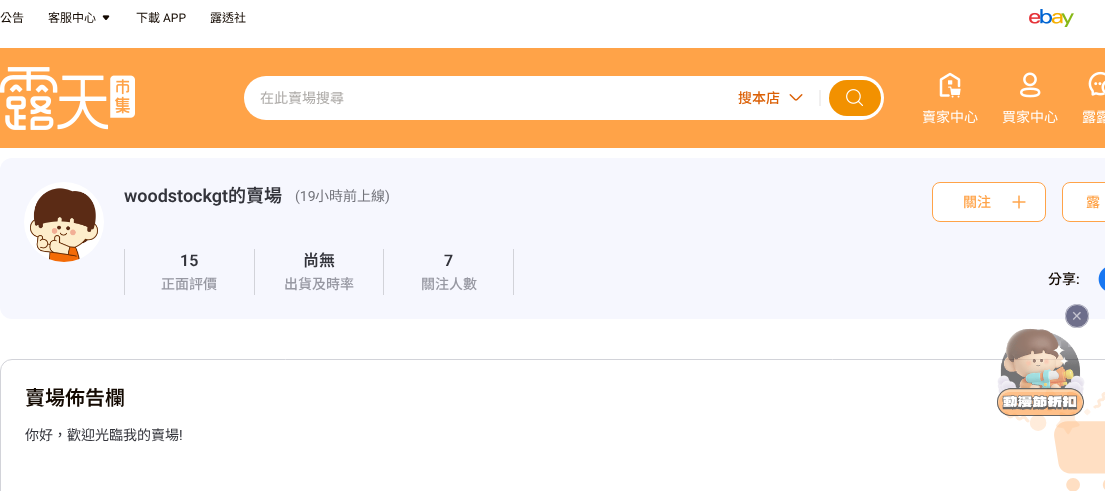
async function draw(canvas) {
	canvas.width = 1105;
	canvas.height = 491;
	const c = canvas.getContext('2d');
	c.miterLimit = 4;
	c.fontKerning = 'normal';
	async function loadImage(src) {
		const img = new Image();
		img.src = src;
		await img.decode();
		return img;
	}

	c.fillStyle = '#fff';
	c.fillRect(0, 0, 1105, 491);
	c.font = '12px Noto Sans TC';
	c.fillStyle = '#130901';
	c.fillText('公告', 0, 22);
	c.fillText('客服中心', 48, 22);
	c.drawImage(await loadImage('img1.png'), 102, 15, 8, 5);
	c.fillText('下載', 136, 22);
	c.font = '12px Roboto';
	c.fillText('APP', 163, 22);
	c.font = '12px Noto Sans TC';
	c.fillText('露透社', 210, 22);
	c.drawImage(await loadImage('img2.png'), 1029, 9, 45, 18);
	c.fillStyle = '#ffa348';
	c.fillRect(0, 48, 1105, 100);
	c.drawImage(await loadImage('img3.png'), 0, 67, 135, 63);
	c.fillStyle = '#fff';
	c.beginPath();
	c.roundRect(244, 76, 640, 44, 22);
	c.fill();
	c.font = '14px Noto Sans TC';
	c.fillStyle = '#aca9a6';
	c.fillText('在此賣場搜尋', 260, 103);
	c.font = '500 14px Noto Sans TC';
	c.fillStyle = '#db6006';
	c.fillText('搜本店', 738, 103);
	c.drawImage(await loadImage('img4.png'), 789, 94, 14, 7);
	c.fillStyle = '#f1f0f0';
	c.fillRect(819, 90, 2, 16);
	c.fillStyle = '#f29100';
	c.beginPath();
	c.roundRect(829, 80, 52, 36, 18);
	c.fill();
	c.drawImage(await loadImage('img5.png'), 846, 89, 17, 17);
	c.drawImage(await loadImage('img6.png'), 939, 72, 22, 26);
	c.font = '14px Noto Sans TC';
	c.fillStyle = '#fff';
	c.fillText('賣家中心', 922, 122);
	c.drawImage(await loadImage('img7.png'), 1020, 72, 21, 26);
	c.fillText('買家中心', 1002, 122);
	c.drawImage(await loadImage('img8.png'), 1088, 71, 17, 25);
	c.fillText('露露', 1082, 122);
	c.fillStyle = '#f6f7fe';
	c.beginPath();
	c.roundRect(0, 158, 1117, 161, 12);
	c.fill();
	c.drawImage(await loadImage('img9.png'), 24, 182, 80, 80);
	c.font = '600 18px Roboto';
	c.fillStyle = '#33343b';
	c.fillText('woodstockgt', 124, 202);
	c.font = '600 18px Noto Sans TC';
	c.fillText('的賣場', 228, 202);
	c.font = '14px Roboto';
	c.fillStyle = '#73747b';
	c.fillText('(19', 295, 201);
	c.font = '14px Noto Sans TC';
	c.fillText('小時前上線', 315, 201);
	c.font = '14px Roboto';
	c.fillText(')', 385, 201);
	c.fillStyle = '#d2d3d9';
	c.fillRect(254, 249, 1, 46);
	c.fillRect(124, 249, 1, 46);
	c.font = '600 16px Roboto';
	c.fillStyle = '#33343b';
	c.fillText('15', 180, 266);
	c.font = '500 14px Noto Sans TC';
	c.fillStyle = '#9798a2';
	c.fillText('正面評價', 161, 289);
	c.fillStyle = '#d2d3d9';
	c.fillRect(383, 249, 1, 46);
	c.font = '600 16px Noto Sans TC';
	c.fillStyle = '#33343b';
	c.fillText('尚無', 303, 266);
	c.font = '500 14px Noto Sans TC';
	c.fillStyle = '#9798a2';
	c.fillText('出貨及時率', 284, 289);
	c.fillStyle = '#d2d3d9';
	c.fillRect(513, 249, 1, 46);
	c.font = '600 16px Roboto';
	c.fillStyle = '#33343b';
	c.fillText('7', 444, 266);
	c.font = '500 14px Noto Sans TC';
	c.fillStyle = '#9798a2';
	c.fillText('關注人數', 421, 289);
	c.fillStyle = '#fff';
	c.beginPath();
	c.roundRect(932.5, 182.5, 113, 39, 7.5);
	c.fill();
	c.strokeStyle = '#ffa348';
	c.stroke();
	c.fillStyle = '#ffa348';
	c.fillText('關注', 963, 207);
	c.drawImage(await loadImage('img10.png'), 1012, 195, 14, 14);
	c.fillStyle = '#fff';
	c.beginPath();
	c.roundRect(1062.5, 182.5, 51, 39, 7.5);
	c.fill();
	c.stroke();
	c.fillStyle = '#ffa348';
	c.fillText('露', 1086, 207);
	c.fillStyle = '#130901';
	c.fillText('分享', 1048, 284);
	c.font = '500 14px Roboto';
	c.fillText(':', 1076, 284);
	c.drawImage(await loadImage('img11.png'), 1098, 267, 7, 24);
	c.beginPath();
	c.roundRect(0.5, 359.5, 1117, 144, 11.5);
	c.strokeStyle = '#d2d3d9';
	c.stroke();
	c.font = '600 20px Noto Sans TC';
	c.fillText('賣場佈告欄', 25, 405);
	c.font = '14px Noto Sans TC';
	c.fillStyle = '#33343b';
	c.fillText('你好，歡迎光臨我的賣場', 25, 440);
	c.font = '14px Roboto';
	c.fillText('!', 179, 440);
	c.drawImage(await loadImage('img12.png'), 1004, 386, 101, 105);
	c.fillStyle = '#11103d99';
	c.beginPath();
	c.arc(1077, 316, 12, 0, 2 * Math.PI);
	c.fill();
	c.beginPath();
	c.arc(1077, 316, 11.5, 0, 2 * Math.PI);
	c.strokeStyle = '#ffffff99';
	c.stroke();
	c.font = '14px DejaVu Sans';
	c.fillStyle = '#c5c4d0';
	c.fillText('✕', 1071, 321);
	c.drawImage(await loadImage('img13.png'), 997, 328, 88, 88);
}

draw(document.querySelector('canvas'));
